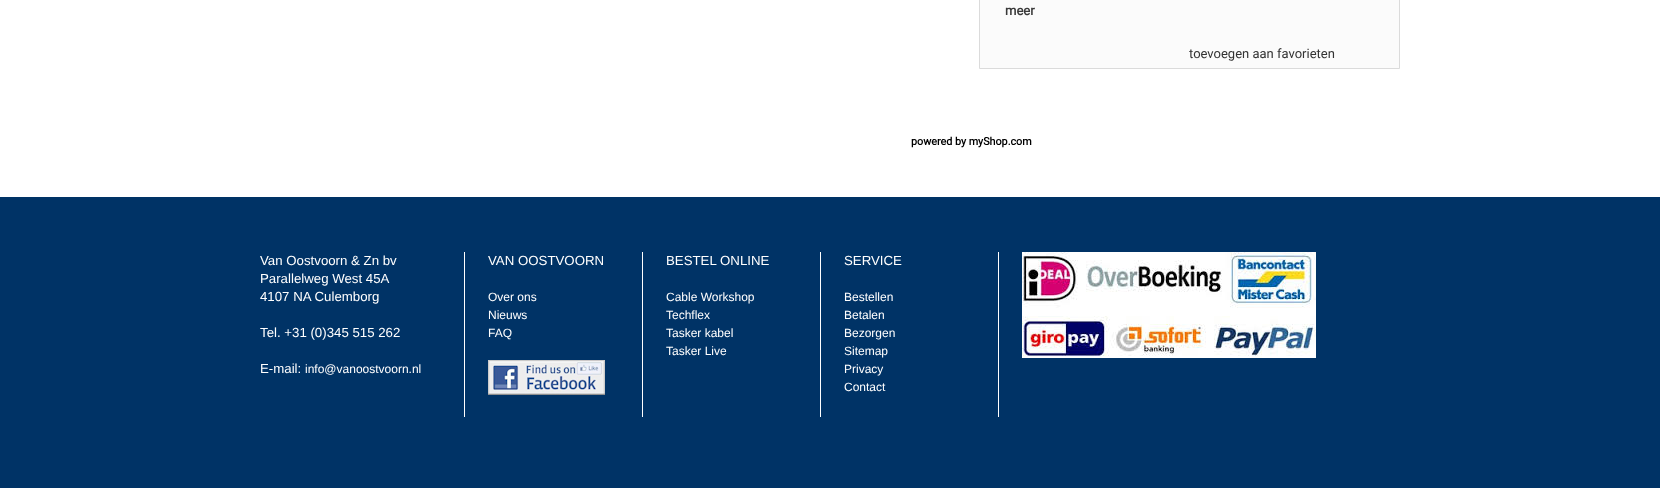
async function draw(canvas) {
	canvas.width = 1660;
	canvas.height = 488;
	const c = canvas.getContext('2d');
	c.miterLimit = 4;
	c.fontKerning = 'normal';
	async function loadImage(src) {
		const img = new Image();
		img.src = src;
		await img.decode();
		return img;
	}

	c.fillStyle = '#fff';
	c.fillRect(0, 0, 1660, 488);
	c.fillStyle = '#fbfbfb';
	c.beginPath();
	c.rect(979.5, -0.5, 420, 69);
	c.fill();
	c.strokeStyle = '#dbdbdb';
	c.stroke();
	c.font = 'bold 13px Roboto';
	c.fillStyle = '#393939';
	c.fillText('meer', 1005, 15);
	c.font = '13px Roboto';
	c.fillStyle = '#333';
	c.fillText('toevoegen aan favorieten', 1189, 58);
	c.font = 'bold 10.75px Roboto';
	c.fillStyle = '#000';
	c.fillText('powered by myShop.com', 911, 145);
	c.fillStyle = '#036';
	c.fillRect(0, 197, 1660, 291);
	c.fillStyle = '#fff';
	c.fillRect(464, 252, 1, 165);
	c.font = '13.25px Liberation Sans';
	for (const [text, x, y] of [
		['Van Oostvoorn & Zn bv', 260, 265],
		['Parallelweg West 45A', 260, 283],
		['4107 NA Culemborg', 260, 301],
		['Tel. +31 (0)345 515 262', 260, 337],
		['E-mail:', 260, 373],
	]) {
		c.fillText(text, x, y);
	}
	c.font = '12px Liberation Sans';
	c.fillText('info@vanoostvoorn.nl', 305, 373);
	c.fillRect(642, 252, 1, 165);
	c.font = '13.25px Liberation Sans';
	c.fillText('VAN OOSTVOORN', 488, 265);
	c.font = '12px Liberation Sans';
	for (const [text, x, y] of [
		['Over ons', 488, 301],
		['Nieuws', 488, 319],
		['FAQ', 488, 337],
	]) {
		c.fillText(text, x, y);
	}
	c.drawImage(await loadImage('img1.png'), 488, 360, 117, 35);
	c.fillRect(820, 252, 1, 165);
	c.font = '13.25px Liberation Sans';
	c.fillText('BESTEL ONLINE', 666, 265);
	c.font = '12px Liberation Sans';
	for (const [text, x, y] of [
		['Cable Workshop', 666, 301],
		['Techflex', 666, 319],
		['Tasker kabel', 666, 337],
		['Tasker Live', 666, 355],
	]) {
		c.fillText(text, x, y);
	}
	c.fillRect(998, 252, 1, 165);
	c.font = '13.25px Liberation Sans';
	c.fillText('SERVICE', 844, 265);
	c.font = '12px Liberation Sans';
	for (const [text, x, y] of [
		['Bestellen', 844, 301],
		['Betalen', 844, 319],
		['Bezorgen', 844, 337],
		['Sitemap', 844, 355],
		['Privacy', 844, 373],
		['Contact', 844, 391],
	]) {
		c.fillText(text, x, y);
	}
	c.drawImage(await loadImage('img2.png'), 1022, 252, 294, 106);
}

draw(document.querySelector('canvas'));
